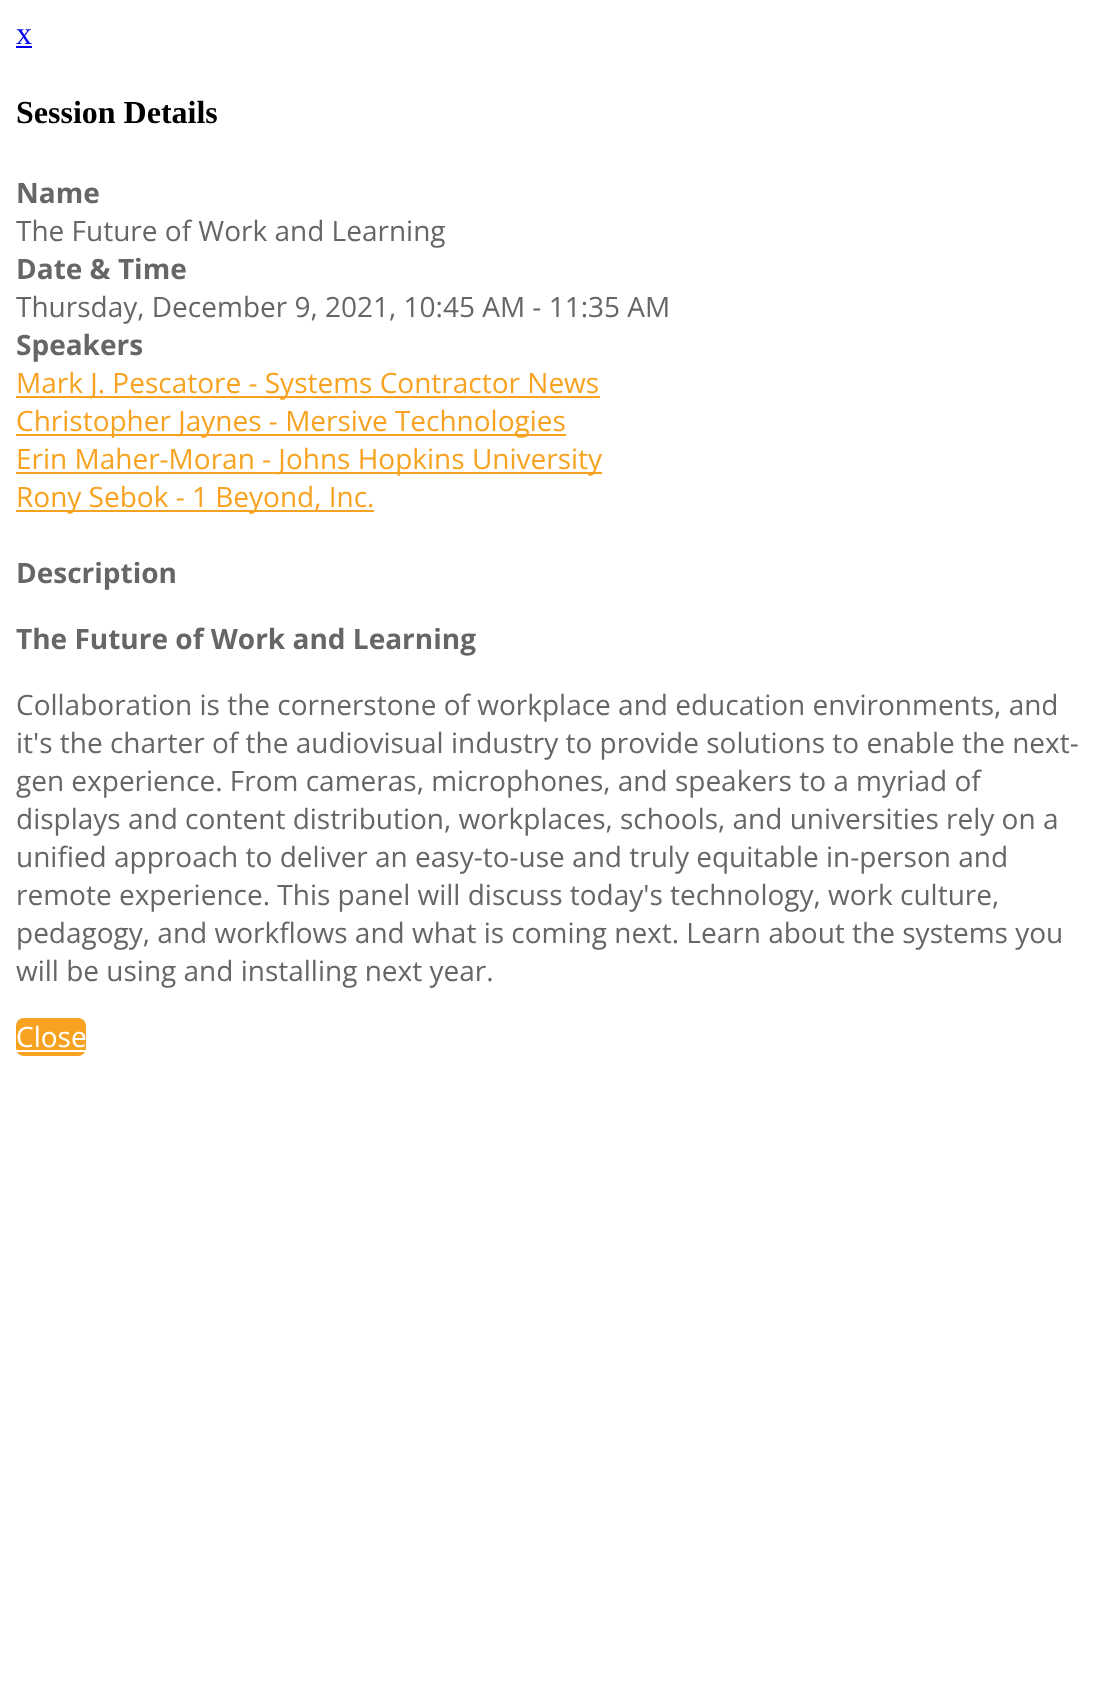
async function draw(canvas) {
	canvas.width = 1108;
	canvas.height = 1687;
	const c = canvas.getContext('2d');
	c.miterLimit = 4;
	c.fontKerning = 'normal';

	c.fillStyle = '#fff';
	c.fillRect(0, 0, 1108, 1687);
	c.font = '32px Liberation Serif';
	c.fillStyle = '#00e';
	c.fillText('x', 16, 44);
	c.fillRect(16, 46, 16, 2);
	c.font = 'bold 32px Liberation Serif';
	c.fillStyle = '#000';
	c.fillText('Session Details', 16, 123);
	c.font = 'bold 28px Open Sans';
	c.fillStyle = '#666';
	c.fillText('Name', 16, 203);
	c.font = '28px Open Sans';
	c.fillText('The Future of Work and Learning', 16, 241);
	c.font = 'bold 28px Open Sans';
	c.fillText('Date & Time', 16, 279);
	c.font = '28px Open Sans';
	c.fillText('Thursday, December 9, 2021, 10:45 AM - 11:35 AM', 16, 317);
	c.font = 'bold 28px Open Sans';
	c.fillText('Speakers', 16, 355);
	c.fillStyle = '#f7a321';
	c.fillRect(16, 396, 584, 2);
	c.font = '28px Open Sans';
	c.fillText('Mark J. Pescatore - Systems Contractor News', 16, 393);
	c.fillRect(16, 434, 550, 2);
	c.fillText('Christopher Jaynes - Mersive Technologies', 16, 431);
	c.fillRect(16, 472, 586, 2);
	c.fillText('Erin Maher-Moran - Johns Hopkins University', 16, 469);
	c.fillRect(16, 510, 358, 2);
	c.fillText('Rony Sebok - 1 Beyond, Inc.', 16, 507);
	c.font = 'bold 28px Open Sans';
	c.fillStyle = '#666';
	c.fillText('Description', 16, 583);
	c.fillText('The Future of Work and Learning', 16, 649);
	c.font = '28px Open Sans';
	for (const [text, x, y] of [
		['Collaboration is the cornerstone of workplace and education environments, and', 16, 715],
		['it\'s the charter of the audiovisual industry to provide solutions to enable the next-', 16, 753],
		['gen experience. From cameras, microphones, and speakers to a myriad of', 16, 791],
		['displays and content distribution, workplaces, schools, and universities rely on a', 16, 829],
		['unified approach to deliver an easy-to-use and truly equitable in-person and', 16, 867],
		['remote experience. This panel will discuss today\'s technology, work culture,', 16, 905],
		['pedagogy, and workflows and what is coming next. Learn about the systems you', 16, 943],
		['will be using and installing next year.', 16, 981],
	]) {
		c.fillText(text, x, y);
	}
	c.fillStyle = '#f7a321';
	c.beginPath();
	c.roundRect(16, 1018, 70, 38, 8);
	c.fill();
	c.fillStyle = '#fff';
	c.fillText('Close', 16, 1047);
	c.fillRect(16, 1050, 70, 2);
}

draw(document.querySelector('canvas'));
